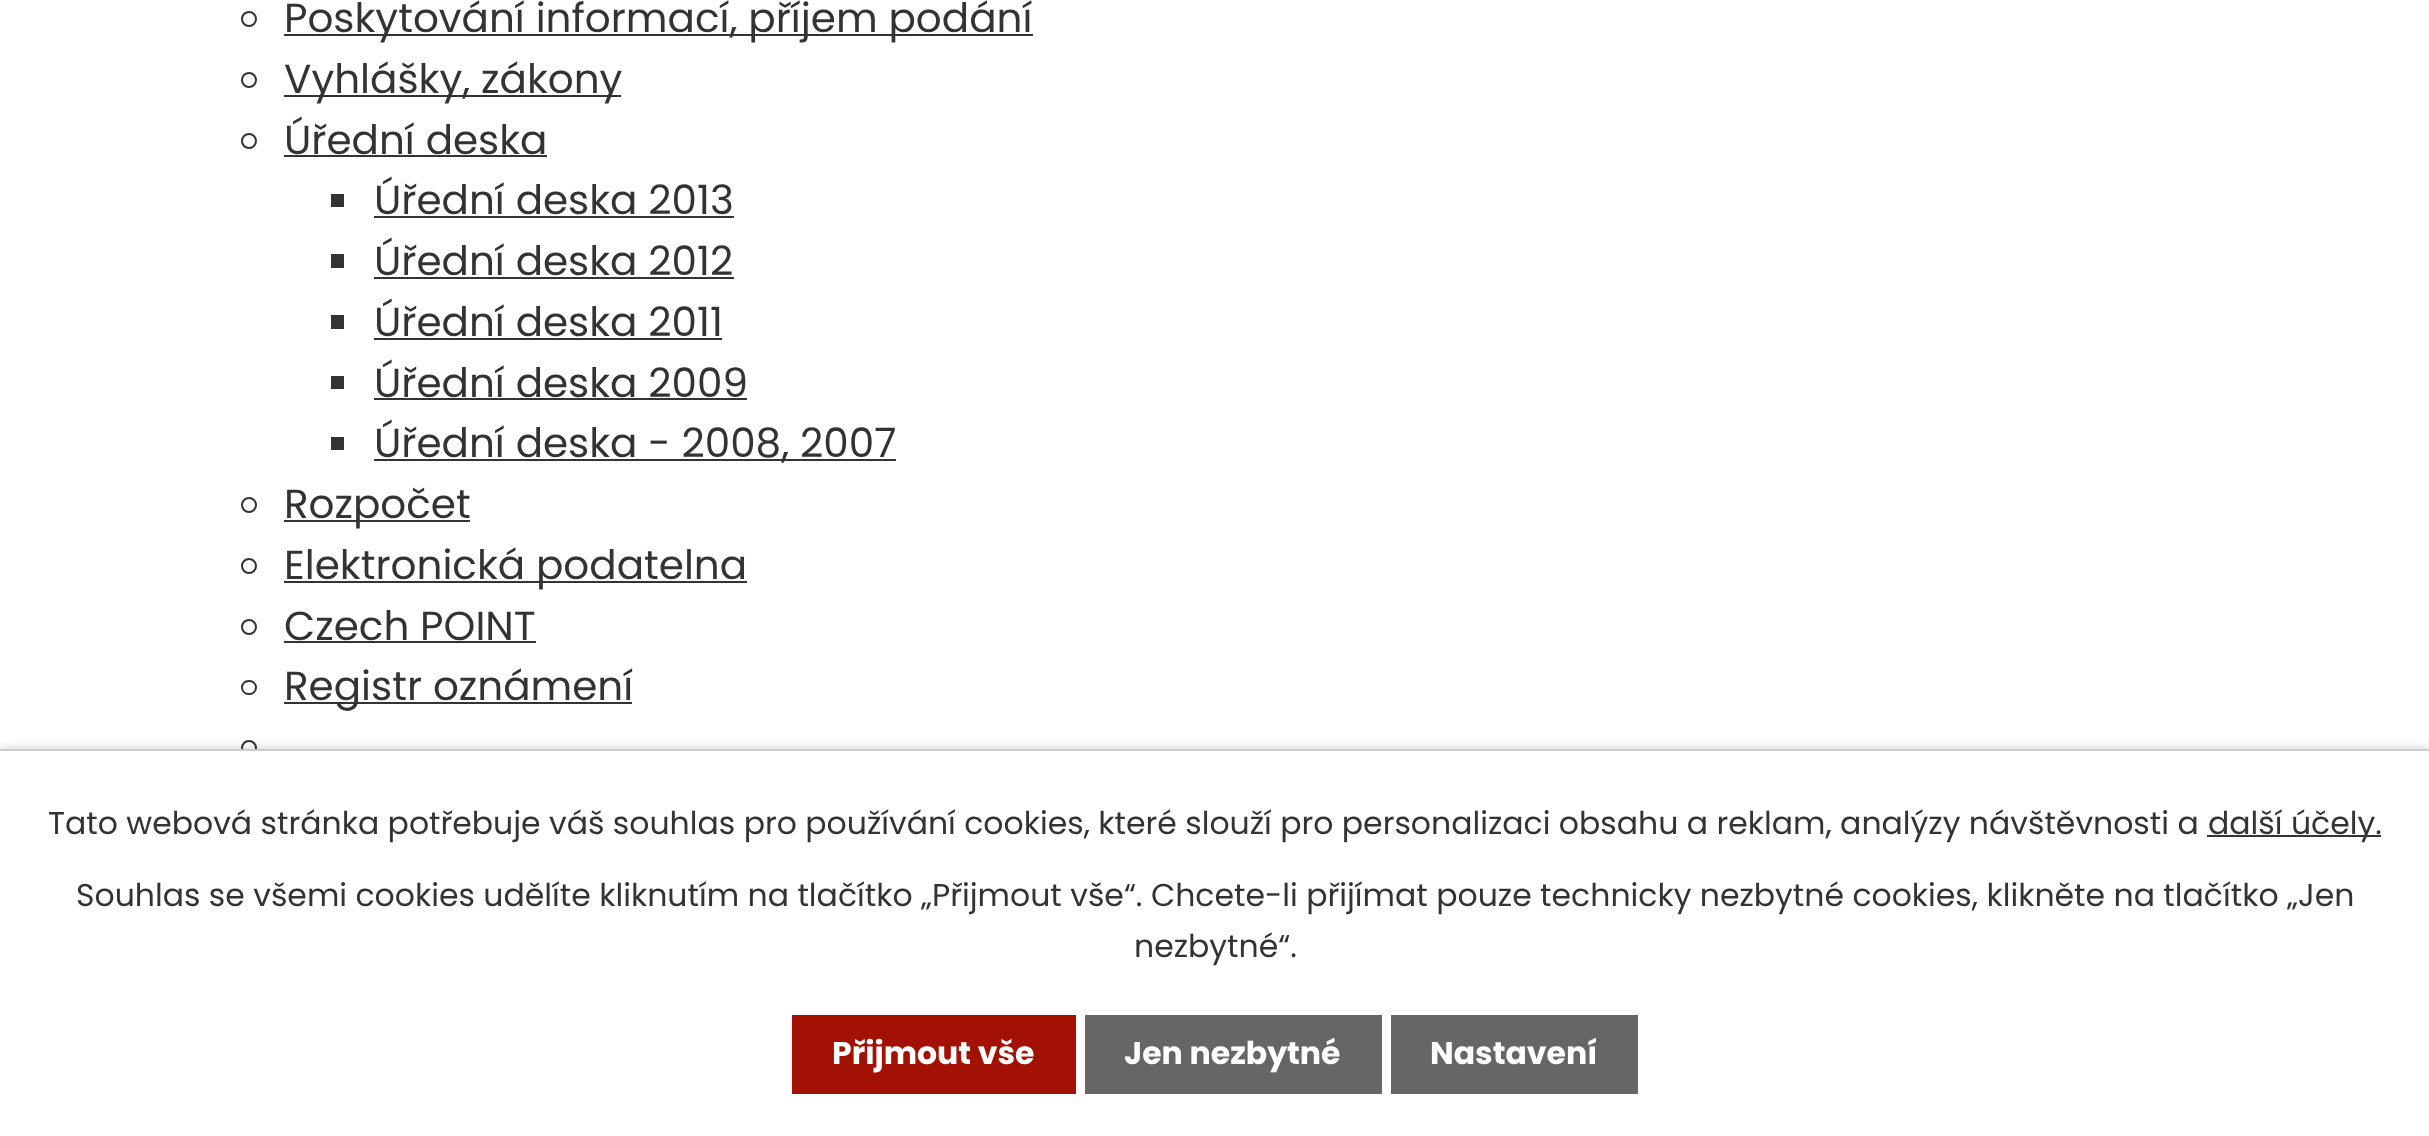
async function draw(canvas) {
	canvas.width = 2429;
	canvas.height = 1136;
	const c = canvas.getContext('2d');
	c.miterLimit = 4;
	c.fontKerning = 'normal';

	c.fillStyle = '#fff';
	c.fillRect(0, 0, 2429, 1136);
	c.beginPath();
	c.arc(249, 19, 7, 0, 2 * Math.PI);
	c.strokeStyle = '#333';
	c.lineWidth = 2;
	c.stroke();
	c.fillStyle = '#333';
	c.fillRect(284, 34, 749, 2);
	c.font = '40.5px Poppins';
	c.fillText('Poskytování informací, příjem podání', 284, 32);
	c.beginPath();
	c.arc(249, 80, 7, 0, 2 * Math.PI);
	c.stroke();
	c.fillRect(284, 95, 337, 2);
	c.fillText('Vyhlášky, zákony', 284, 93);
	c.beginPath();
	c.arc(249, 141, 7, 0, 2 * Math.PI);
	c.stroke();
	c.fillText('Úřední deska', 284, 154);
	c.fillRect(284, 155, 263, 2);
	c.fillRect(331, 194, 13, 13);
	c.fillText('Úřední deska 2013', 374, 214);
	c.fillRect(374, 216, 360, 2);
	c.fillRect(331, 254, 13, 14);
	c.fillText('Úřední deska 2012', 374, 275);
	c.fillRect(374, 277, 360, 2);
	c.fillRect(331, 315, 13, 14);
	c.fillText('Úřední deska 2011', 374, 336);
	c.fillRect(374, 338, 348, 2);
	c.fillRect(331, 376, 13, 13);
	c.fillText('Úřední deska 2009', 374, 397);
	for (const [x, y, w, h, color] of [
		[374, 398, 373, 2, '#333'],
		[331, 437, 13, 13, '#333'],
		[374, 459, 522, 2, '#333'],
	]) {
		c.fillStyle = color;
		c.fillRect(x, y, w, h);
	}
	c.fillText('Úřední deska - 2008, 2007', 374, 457);
	c.beginPath();
	c.arc(249, 505, 7, 0, 2 * Math.PI);
	c.stroke();
	c.fillRect(284, 520, 186, 2);
	c.fillText('Rozpočet', 284, 518);
	c.beginPath();
	c.arc(249, 566, 7, 0, 2 * Math.PI);
	c.stroke();
	c.fillRect(284, 581, 463, 2);
	c.fillText('Elektronická podatelna', 284, 579);
	c.beginPath();
	c.arc(249, 627, 7, 0, 2 * Math.PI);
	c.stroke();
	c.fillText('Czech POINT', 284, 640);
	c.fillRect(284, 641, 252, 2);
	c.beginPath();
	c.roundRect(242, 681, 14, 13, 6.5);
	c.stroke();
	c.fillRect(284, 702, 348, 2);
	c.fillText('Registr oznámení', 284, 700);
	c.beginPath();
	c.arc(249, 748, 7, 0, 2 * Math.PI);
	c.stroke();
	c.fillStyle = '#00000033';
	c.filter = 'blur(5.5px)';
	c.beginPath();
	c.rect(0, 749, 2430, 387);
	c.fill();
	c.filter = 'none';
	c.fillStyle = '#fff';
	c.fillRect(0, 751, 2429, 385);
	c.fillStyle = '#ccc';
	c.fillRect(0, 749, 2429, 2);
	c.font = '31.5px Poppins';
	c.fillStyle = '#333';
	c.fillText('Tato webová stránka potřebuje váš souhlas pro používání cookies, které slouží pro personalizaci obsahu a reklam, analýzy návštěvnosti a', 48, 834);
	c.fillRect(2207, 835, 174, 2);
	for (const [text, x, y] of [
		['další účely.', 2208, 834],
		['Souhlas se všemi cookies udělíte kliknutím na tlačítko „Přijmout vše“. Chcete-li přijímat pouze technicky nezbytné cookies, klikněte na tlačítko „Jen', 76, 906],
		['nezbytné“.', 1134, 957],
	]) {
		c.fillText(text, x, y);
	}
	c.fillStyle = '#a31104';
	c.fillRect(792, 1015, 284, 79);
	c.font = 'bold 31.5px Poppins';
	c.fillStyle = '#fff';
	c.fillText('Přijmout vše', 832, 1064);
	c.fillStyle = '#666';
	c.fillRect(1085, 1015, 297, 79);
	c.fillStyle = '#fff';
	c.fillText('Jen nezbytné', 1124, 1064);
	c.fillStyle = '#666';
	c.fillRect(1391, 1015, 247, 79);
	c.fillStyle = '#fff';
	c.fillText('Nastavení', 1430, 1064);
}

draw(document.querySelector('canvas'));
